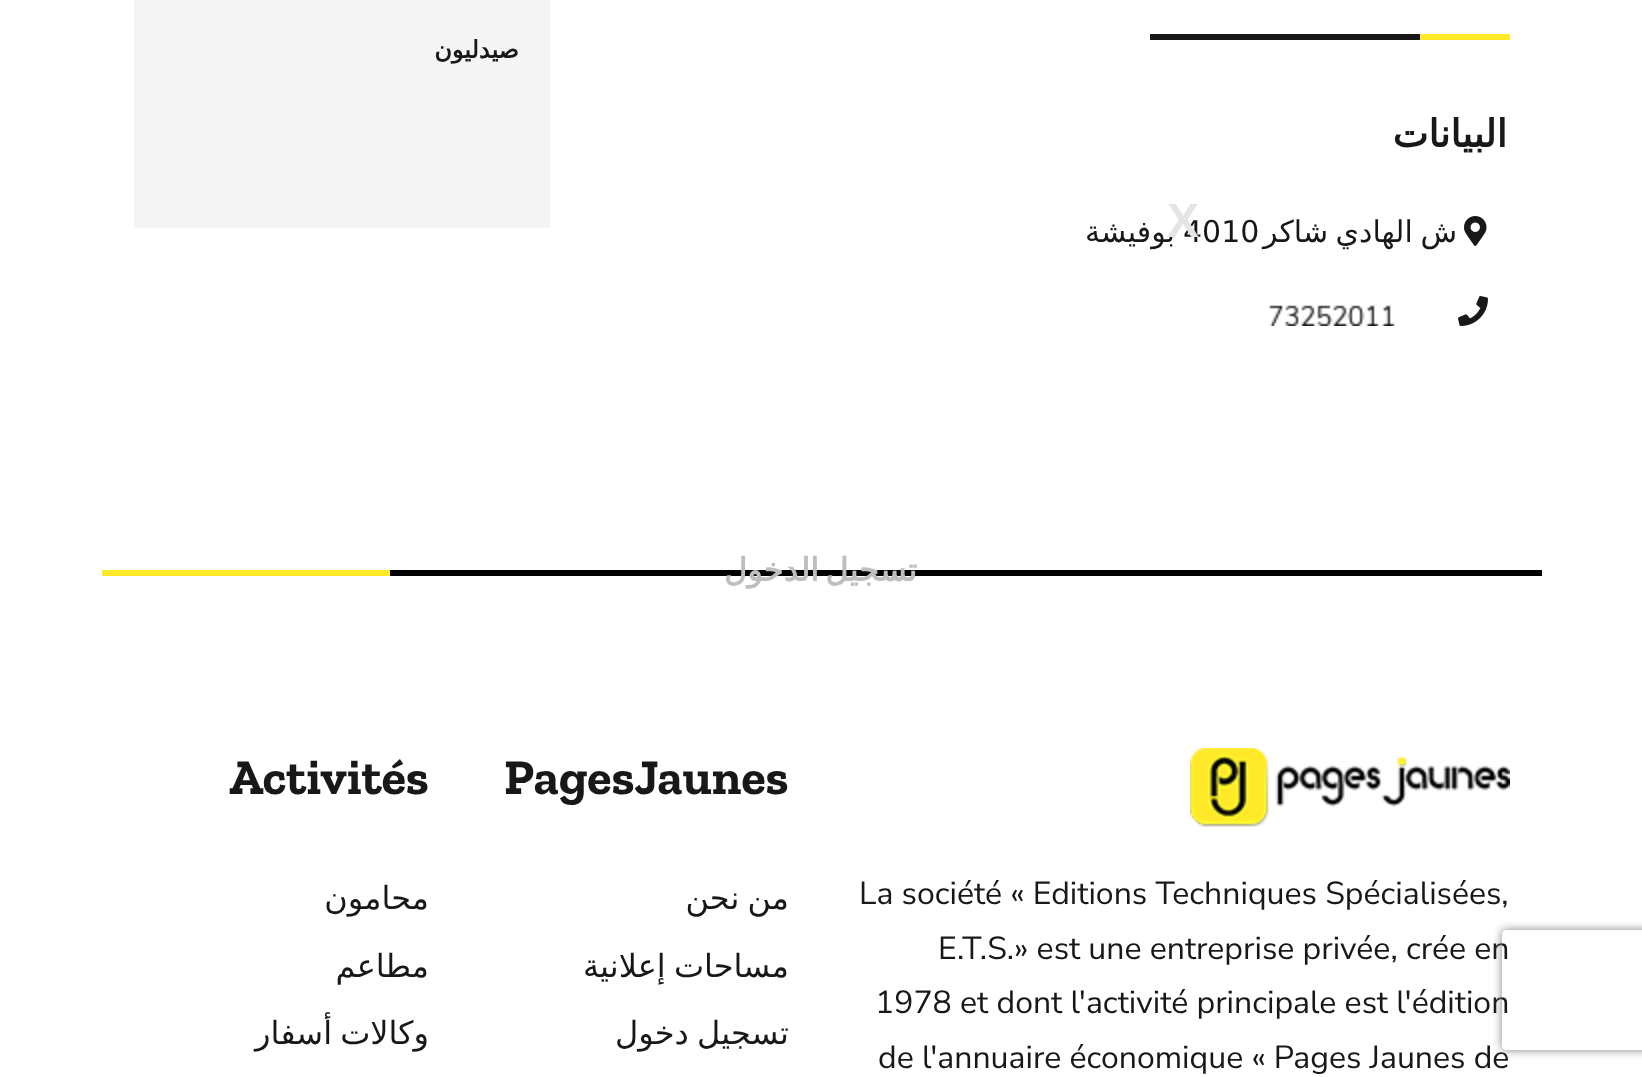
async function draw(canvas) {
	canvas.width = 1642;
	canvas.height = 1077;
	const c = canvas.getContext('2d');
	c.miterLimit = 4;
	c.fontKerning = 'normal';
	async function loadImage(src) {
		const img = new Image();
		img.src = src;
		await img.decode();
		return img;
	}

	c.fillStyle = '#fff';
	c.fillRect(0, 0, 1642, 1077);
	c.fillStyle = '#f4f4f4';
	c.fillRect(134, 0, 416, 228);
	c.direction = 'rtl';
	c.font = 'bold 24px DejaVu Sans';
	c.fillStyle = '#181818';
	c.fillText('صيدليون', 519, 58);
	c.fillRect(1150, 34, 270, 6);
	c.fillStyle = '#ffe928';
	c.fillRect(1420, 34, 90, 6);
	c.font = 'bold 38px DejaVu Sans';
	c.fillStyle = '#181818';
	c.fillText('البيانات', 1507, 147);
	c.font = '30px DejaVu Sans';
	c.fillText('بوفيشة', 1175, 242);
	c.direction = 'ltr';
	c.fillText('4010', 1183, 242);
	c.wordSpacing = '-2px';
	c.direction = 'rtl';
	c.fillText('ش الهادي شاكر', 1457, 242);
	c.drawImage(await loadImage('img1.png'), 1464, 216, 23, 30);
	c.drawImage(await loadImage('img2.png'), 1269, 305, 126, 21);
	c.drawImage(await loadImage('img3.png'), 1458, 296, 30, 30);
	c.wordSpacing = '0px';
	c.direction = 'ltr';
	c.font = 'bold 48px Liberation Sans';
	c.fillStyle = '#e5e5e5';
	c.fillText('X', 1167, 237);
	c.fillStyle = '#000';
	c.fillRect(390, 570, 1152, 6);
	c.wordSpacing = '-4px';
	c.direction = 'rtl';
	c.font = 'bold 32px DejaVu Sans';
	c.fillStyle = '#bebebe';
	c.fillText('تسجيل الدخول', 917, 581);
	c.fillStyle = '#ffe928';
	c.fillRect(102, 570, 288, 6);
	c.wordSpacing = '0px';
	c.direction = 'ltr';
	c.font = 'bold 50px Zilla Slab';
	c.fillStyle = '#181818';
	c.fillText('Activités', 229, 794);
	c.direction = 'rtl';
	c.font = '32px DejaVu Sans';
	c.fillText('محامون', 429, 909);
	c.fillText('مطاعم', 429, 977);
	c.wordSpacing = '-2px';
	c.fillText('وكالات أسفار', 429, 1044);
	c.wordSpacing = '0px';
	c.direction = 'ltr';
	c.font = 'bold 50px Zilla Slab';
	c.fillText('PagesJaunes', 504, 794);
	c.wordSpacing = '-2px';
	c.direction = 'rtl';
	c.font = '32px DejaVu Sans';
	for (const [text, x, y] of [
		['من نحن', 789, 909],
		['مساحات إعلانية', 789, 977],
		['تسجيل دخول', 789, 1044],
	]) {
		c.fillText(text, x, y);
	}
	c.drawImage(await loadImage('img4.png'), 1190, 748, 320, 79);
	c.wordSpacing = '0px';
	c.direction = 'ltr';
	c.font = '32px Nunito Sans';
	for (const [text, x, y] of [
		['La société « Editions Techniques Spécialisées,', 859, 904],
		['E.T.S.» est une entreprise privée, crée en', 938, 959],
		['1978 et dont l\'activité principale est l\'édition', 875, 1013],
		['de l\'annuaire économique « Pages Jaunes de', 878, 1068],
	]) {
		c.fillText(text, x, y);
	}
	c.save();
	c.beginPath();
	c.moveTo(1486, 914);
	c.lineTo(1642, 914);
	c.lineTo(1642, 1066);
	c.lineTo(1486, 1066);
	c.closePath();
	c.moveTo(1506, 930);
	c.lineTo(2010, 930);
	c.bezierCurveTo(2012, 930, 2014, 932, 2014, 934);
	c.lineTo(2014, 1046);
	c.bezierCurveTo(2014, 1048, 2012, 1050, 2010, 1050);
	c.lineTo(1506, 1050);
	c.bezierCurveTo(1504, 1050, 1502, 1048, 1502, 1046);
	c.lineTo(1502, 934);
	c.bezierCurveTo(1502, 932, 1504, 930, 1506, 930);
	c.closePath();
	c.clip('evenodd');
	c.fillStyle = '#808080';
	c.filter = 'blur(5px)';
	c.beginPath();
	c.roundRect(1502, 930, 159, 120, 4);
	c.fill();
	c.filter = 'none';
	c.restore();
}

draw(document.querySelector('canvas'));
